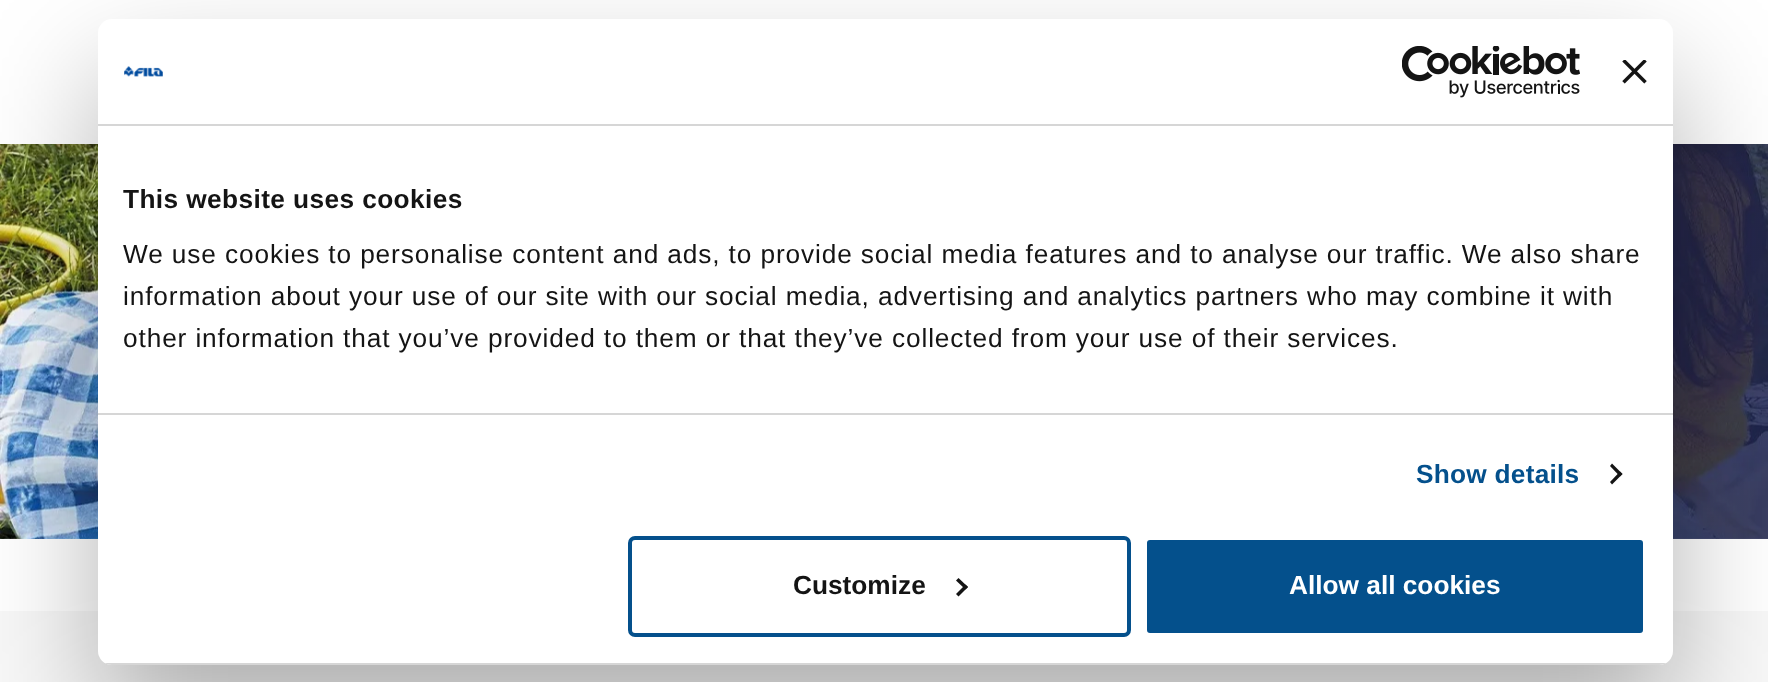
async function draw(canvas) {
	canvas.width = 1768;
	canvas.height = 682;
	const c = canvas.getContext('2d');
	c.miterLimit = 4;
	c.fontKerning = 'normal';
	async function loadImage(src) {
		const img = new Image();
		img.src = src;
		await img.decode();
		return img;
	}
	let gradient;

	c.fillStyle = '#fff';
	c.fillRect(0, 0, 1768, 682);
	c.drawImage(await loadImage('img1.png'), 0, 144, 1768, 395);
	gradient = c.createLinearGradient(0, 270, 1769, 269);
	gradient.addColorStop(0, '#00000000');
	gradient.addColorStop(1, '#00000040');
	c.fillStyle = gradient;
	c.fillRect(1673, 144, 95, 395);
	c.fillStyle = '#00000059';
	c.filter = 'blur(17.5px)';
	c.beginPath();
	c.rect(19, 30, 1731, 105);
	c.fill();
	c.filter = 'none';
	c.fillStyle = '#fff';
	c.fillRect(0, 0, 1768, 144);
	c.fillStyle = '#f8f8f8';
	c.fillRect(0, 611, 1768, 71);
	c.fillStyle = '#0000004d';
	c.filter = 'blur(59.5px)';
	c.beginPath();
	c.roundRect(98, 75, 1575, 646, 14);
	c.fill();
	c.filter = 'none';
	c.fillStyle = '#fff';
	c.beginPath();
	c.roundRect(98, 19, 1575, 646, 14);
	c.fill();
	c.fillStyle = '#d6d6d6';
	c.fillRect(98, 124, 1575, 2);
	c.drawImage(await loadImage('img2.png'), 124, 66, 39, 11);
	c.drawImage(await loadImage('img3.png'), 1402, 46, 178, 52);
	c.drawImage(await loadImage('img4.png'), 1622, 60, 25, 24);
	c.fillRect(98, 413, 1575, 2);
	c.letterSpacing = '0.4px';
	c.font = 'bold 26.25px Liberation Sans';
	c.fillStyle = '#141414';
	c.fillText('This website uses cookies', 123, 208);
	c.letterSpacing = '0.88px';
	c.font = '26.25px Liberation Sans';
	for (const [text, x, y] of [
		['We use cookies to personalise content and ads, to provide social media features and to analyse our traffic. We also share', 123, 263],
		['information about your use of our site with our social media, advertising and analytics partners who may combine it with', 123, 305],
		['other information that you’ve provided to them or that they’ve collected from your use of their services.', 123, 347],
	]) {
		c.fillText(text, x, y);
	}
	c.letterSpacing = '0.25px';
	c.font = 'bold 26.25px Liberation Sans';
	c.fillStyle = '#04508c';
	c.fillText('Show details', 1416, 483);
	c.fillStyle = '#141414';
	c.beginPath();
	c.moveTo(1612, 463.5);
	c.lineTo(1622.5, 474);
	c.lineTo(1620, 476.5);
	c.lineTo(1610, 466);
	c.closePath();
	c.fill();
	c.beginPath();
	c.moveTo(1620, 471.5);
	c.lineTo(1622.5, 474);
	c.lineTo(1612, 484.5);
	c.lineTo(1610, 482);
	c.closePath();
	c.fill();
	c.save();
	c.beginPath();
	c.roundRect(98, 19, 1575, 646, 14);
	c.clip();
	c.fillStyle = '#d6d6d6';
	c.fillRect(98, 663, 1575, 2);
	c.restore();
	c.beginPath();
	c.roundRect(630, 538, 499, 97, 5);
	c.strokeStyle = '#04508c';
	c.lineWidth = 4;
	c.stroke();
	c.letterSpacing = '0px';
	c.fillText('Customize', 793, 594);
	c.beginPath();
	c.moveTo(958.5, 578);
	c.lineTo(968, 587);
	c.lineTo(965.5, 589.5);
	c.lineTo(956, 580.5);
	c.closePath();
	c.fill();
	c.beginPath();
	c.moveTo(965.5, 584.5);
	c.lineTo(968, 587);
	c.lineTo(958.5, 596.5);
	c.lineTo(956, 594);
	c.closePath();
	c.fill();
	c.fillStyle = '#04508c';
	c.beginPath();
	c.roundRect(1145, 538, 500, 97, 5);
	c.fill();
	c.strokeStyle = '#fff';
	c.stroke();
	c.fillStyle = '#fff';
	c.fillText('Allow all cookies', 1289, 594);
}

draw(document.querySelector('canvas'));
